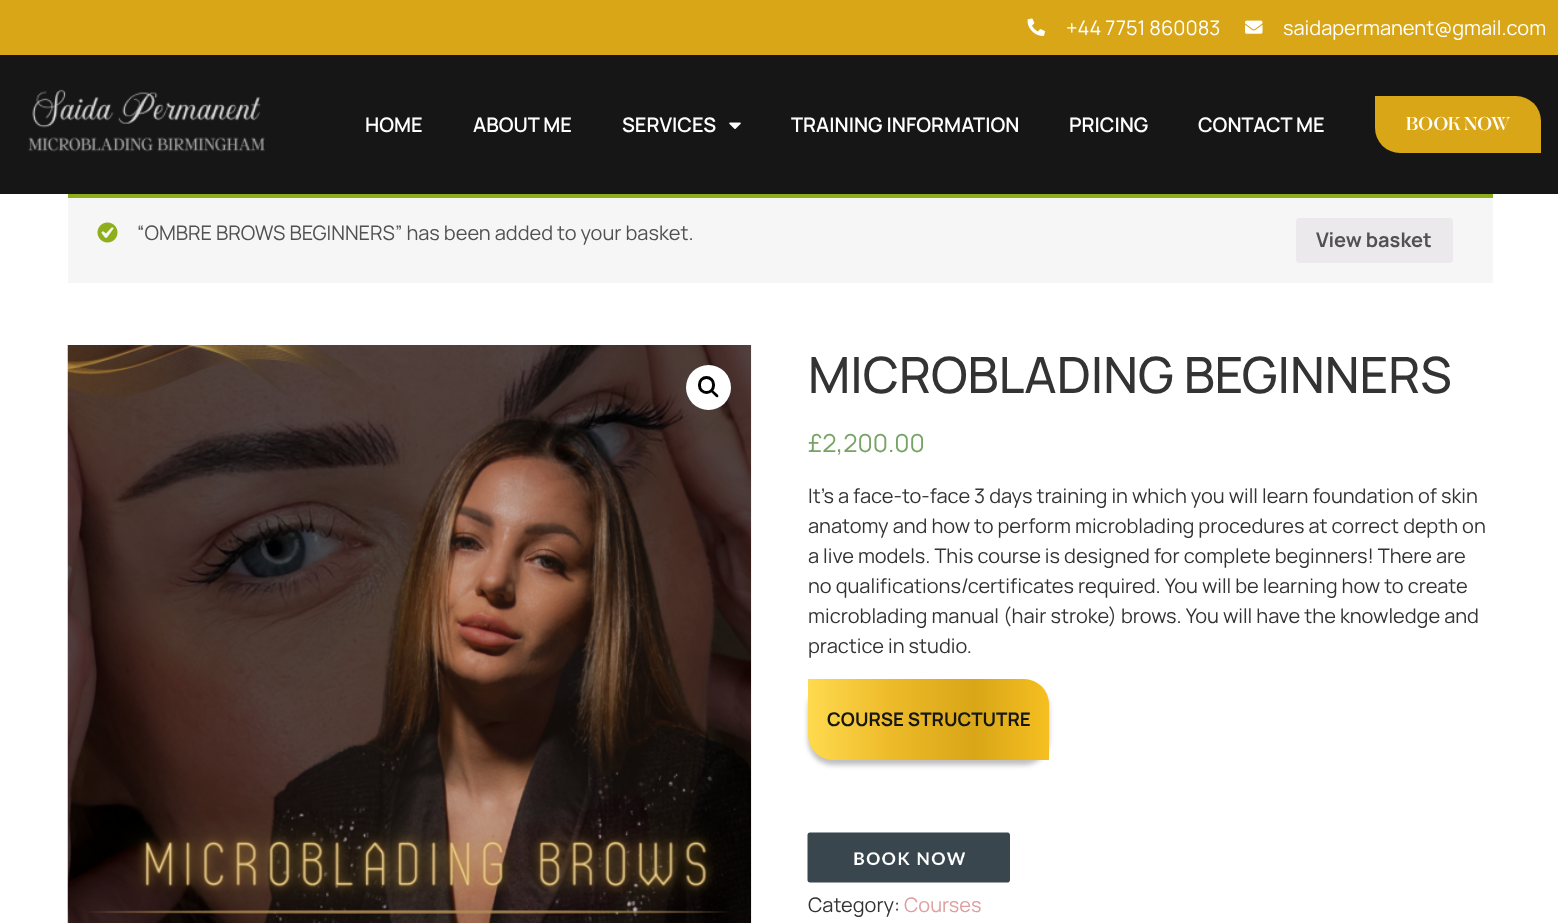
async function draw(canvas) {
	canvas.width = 1558;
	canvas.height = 923;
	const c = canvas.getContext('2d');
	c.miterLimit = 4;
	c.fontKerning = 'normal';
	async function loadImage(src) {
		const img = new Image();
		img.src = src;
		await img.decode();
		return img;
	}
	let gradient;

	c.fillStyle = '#fff';
	c.fillRect(0, 0, 1558, 923);
	c.fillStyle = '#d8a617';
	c.fillRect(0, 0, 1558, 55);
	c.drawImage(await loadImage('img1.png'), 1027, 18, 18, 18);
	c.font = '20px Manrope';
	c.fillStyle = '#fff';
	c.fillText('+44 7751 860083', 1066, 35);
	c.drawImage(await loadImage('img2.png'), 1245, 20, 18, 14);
	c.fillText('saidapermanent@gmail.com', 1283, 35);
	c.fillStyle = '#161616';
	c.fillRect(0, 55, 1558, 139);
	c.drawImage(await loadImage('img3.png'), 28, 89, 237, 63);
	c.font = '600 20px Manrope';
	c.fillStyle = '#fff';
	for (const [text, x, y] of [
		['HOME', 365, 132],
		['ABOUT ME', 473, 132],
		['SERVICES', 622, 132],
	]) {
		c.fillText(text, x, y);
	}
	c.drawImage(await loadImage('img4.png'), 729, 122, 12, 7);
	for (const [text, x, y] of [
		['TRAINING INFORMATION', 791, 132],
		['PRICING', 1069, 132],
		['CONTACT ME', 1198, 132],
	]) {
		c.fillText(text, x, y);
	}
	c.fillStyle = '#d8a617';
	c.beginPath();
	c.roundRect(1375, 96, 166, 57, [0, 25, 0, 25]);
	c.fill();
	c.font = 'bold 18.75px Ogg';
	c.fillStyle = '#fff';
	c.fillText('BOOK NOW', 1406, 130);
	c.fillStyle = '#f7f6f7';
	c.fillRect(68, 198, 1425, 85);
	c.fillStyle = '#8fae1b';
	c.fillRect(68, 194, 1425, 4);
	c.drawImage(await loadImage('img5.png'), 97, 222, 21, 21);
	c.font = '20px Manrope';
	c.fillStyle = '#515151';
	c.fillText('“OMBRE BROWS BEGINNERS” has been added to your basket.', 137, 240);
	c.fillStyle = '#ebe9eb';
	c.beginPath();
	c.roundRect(1296, 218, 157, 45, 4);
	c.fill();
	c.font = 'bold 20px Manrope';
	c.fillStyle = '#515151';
	c.fillText('View basket', 1316, 247);
	c.drawImage(await loadImage('img6.png'), 67, 345, 685, 578);
	c.fillStyle = '#fff';
	c.beginPath();
	c.arc(708.5, 387.5, 22.5, 0, 2 * Math.PI);
	c.fill();
	c.beginPath();
	c.roundRect(699.5, 377.5, 14, 15, 7);
	c.strokeStyle = '#000';
	c.lineWidth = 3;
	c.stroke();
	c.fillStyle = '#000';
	c.beginPath();
	c.moveTo(711, 390);
	c.bezierCurveTo(712.5, 388.5, 714.5, 392, 715.5, 392.5);
	c.bezierCurveTo(716.5, 393.5, 719.5, 395.5, 718, 397);
	c.bezierCurveTo(716.5, 398.5, 714.5, 395, 713.5, 394.5);
	c.bezierCurveTo(713, 393.5, 709.5, 391.5, 711, 390);
	c.closePath();
	c.fill();
	c.font = '500 50px Manrope';
	c.fillStyle = '#333';
	c.fillText('MICROBLADING BEGINNERS', 808, 393);
	c.font = '25px Manrope';
	c.fillStyle = '#77a464';
	c.fillText('£2,200.00', 808, 452);
	c.font = '20px Manrope';
	c.fillStyle = '#333';
	for (const [text, x, y] of [
		['It’s a face-to-face 3 days training in which you will learn foundation of skin', 808, 503],
		['anatomy and how to perform microblading procedures at correct depth on', 808, 533],
		['a live models. This course is designed for complete beginners! There are', 808, 563],
		['no qualifications/certificates required. You will be learning how to create', 808, 593],
		['microblading manual (hair stroke) brows. You will have the knowledge and', 808, 623],
		['practice in studio.', 808, 653],
	]) {
		c.fillText(text, x, y);
	}
	c.fillStyle = '#00000040';
	c.filter = 'blur(2.5px)';
	c.beginPath();
	c.roundRect(808, 684, 241, 81, 25);
	c.fill();
	c.filter = 'none';
	gradient = c.createLinearGradient(808, 719, 1049, 719);
	gradient.addColorStop(0, '#ffda4e');
	gradient.addColorStop(0.35, '#edba29');
	gradient.addColorStop(0.69, '#d8a617');
	gradient.addColorStop(1, '#f6bf21');
	c.fillStyle = gradient;
	c.beginPath();
	c.roundRect(808, 679, 241, 81, [0, 25, 0, 25]);
	c.fill();
	c.font = 'bold 18.75px Manrope';
	c.fillStyle = '#161616';
	c.fillText('COURSE STRUCTUTRE', 827, 726);
	c.drawImage(await loadImage('img7.png'), 807, 832, 203, 51);
	c.font = '20px Manrope';
	c.fillStyle = '#333';
	c.fillText('Category:', 808, 912);
	c.fillStyle = '#df9f9f';
	c.fillText('Courses', 904, 912);
}

draw(document.querySelector('canvas'));
